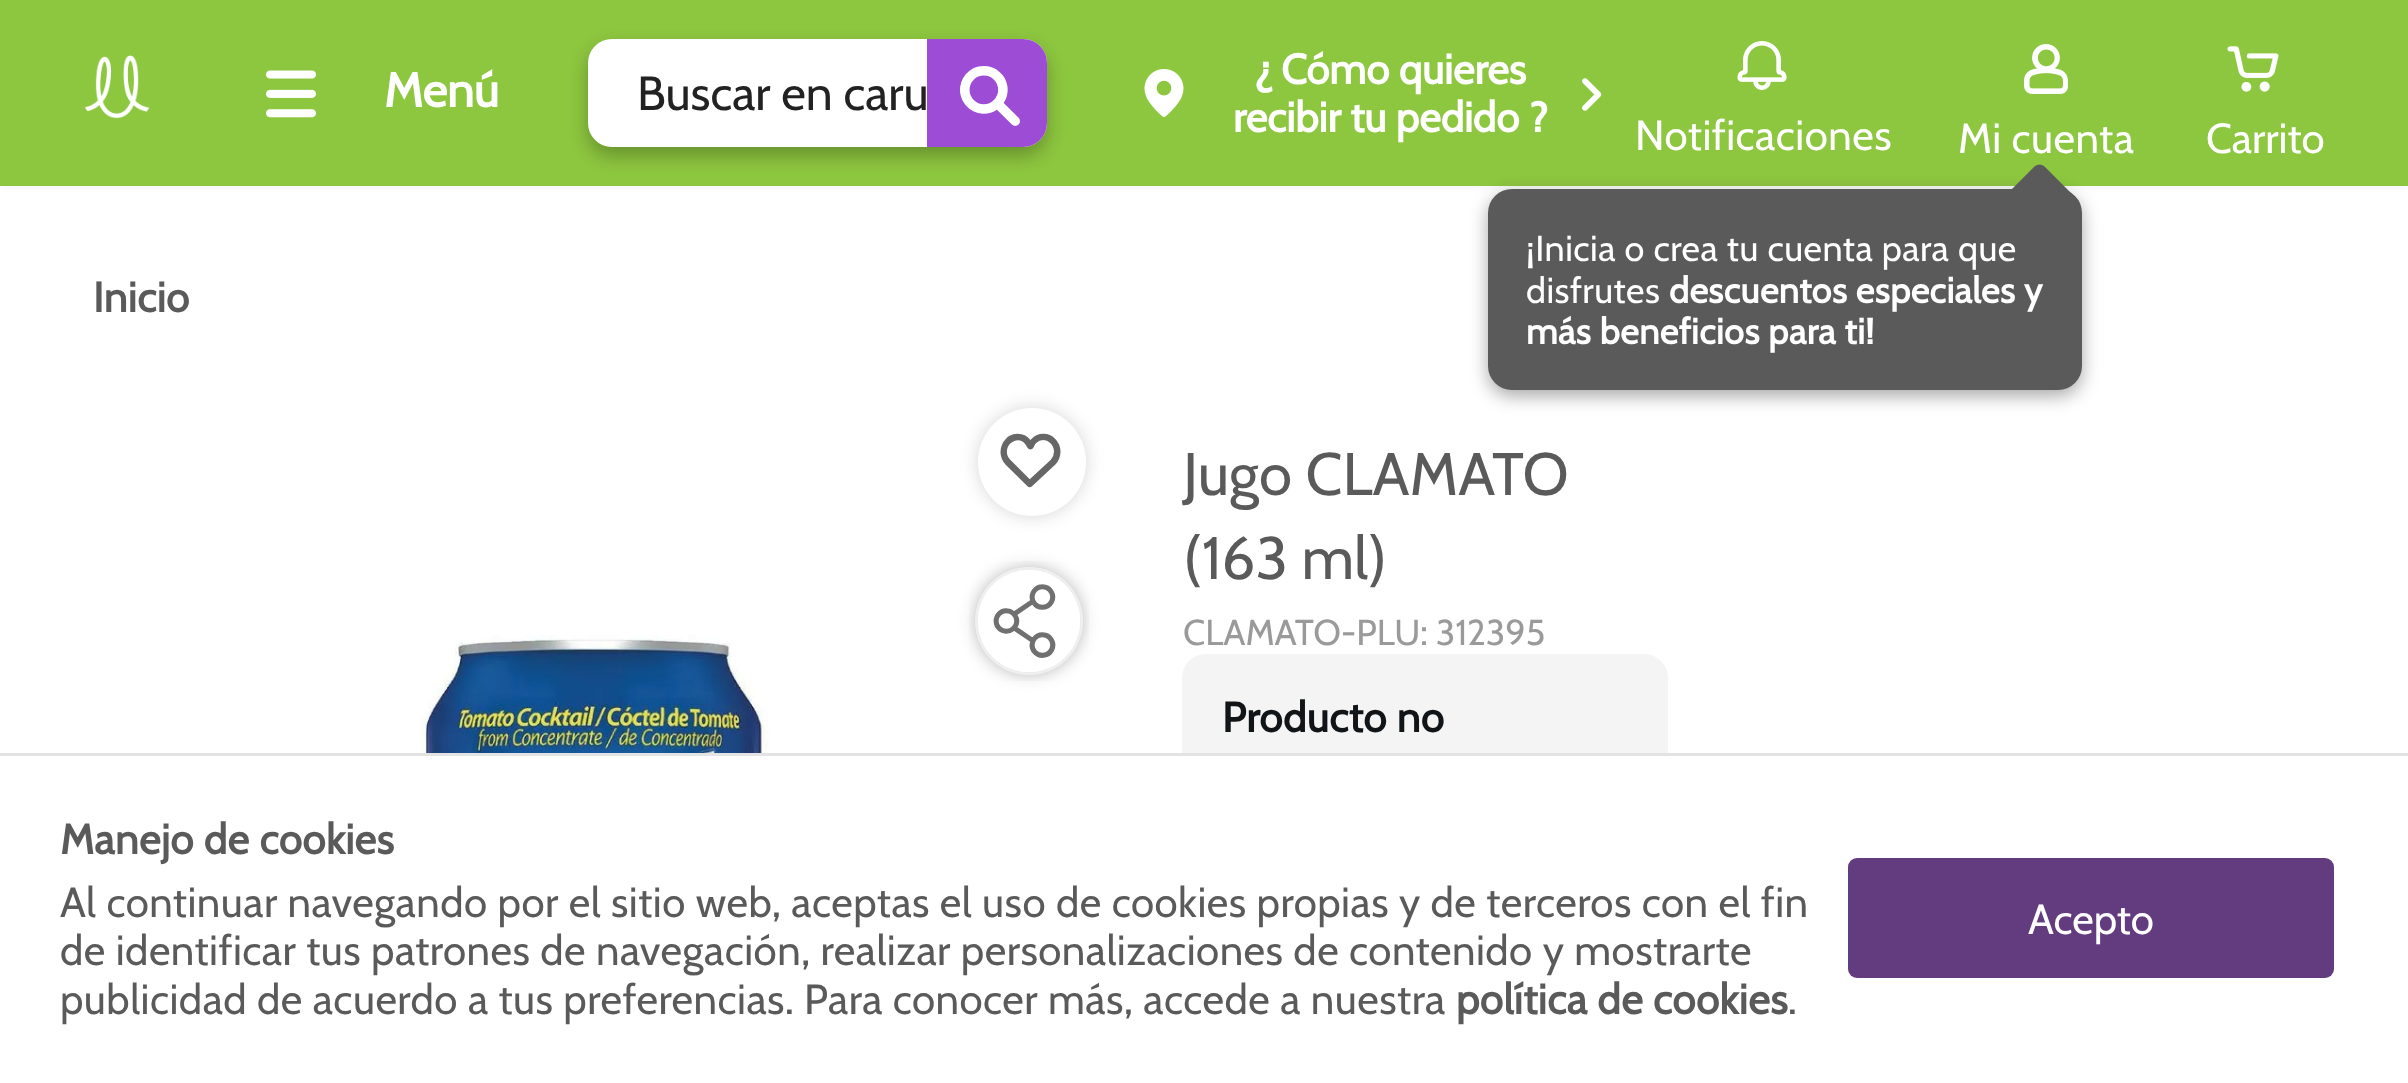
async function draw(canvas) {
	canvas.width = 2408;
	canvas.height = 1083;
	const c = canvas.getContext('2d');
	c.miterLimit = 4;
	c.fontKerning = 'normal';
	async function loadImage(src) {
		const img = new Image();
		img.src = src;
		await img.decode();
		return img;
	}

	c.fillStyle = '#fff';
	c.fillRect(0, 0, 2408, 1083);
	c.fillStyle = '#0000000d';
	c.filter = 'blur(4.5px)';
	c.beginPath();
	c.rect(0, 0, 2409, 186);
	c.fill();
	c.filter = 'none';
	c.fillStyle = '#8dc63f';
	c.fillRect(0, 0, 2408, 186);
	c.drawImage(await loadImage('img1.png'), 84, 55, 66, 64);
	c.drawImage(await loadImage('img2.png'), 266, 70, 50, 48);
	c.font = 'bold 48px Cabin';
	c.fillStyle = '#fff';
	c.fillText('Menú', 384, 107);
	c.beginPath();
	c.roundRect(588, 39, 459, 108, 24);
	c.fill();
	c.save();
	c.beginPath();
	c.moveTo(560, 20);
	c.lineTo(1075, 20);
	c.lineTo(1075, 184);
	c.lineTo(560, 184);
	c.closePath();
	c.moveTo(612, 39);
	c.lineTo(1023, 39);
	c.bezierCurveTo(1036.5, 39, 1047, 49.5, 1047, 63);
	c.lineTo(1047, 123);
	c.bezierCurveTo(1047, 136.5, 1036.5, 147, 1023, 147);
	c.lineTo(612, 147);
	c.bezierCurveTo(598.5, 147, 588, 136.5, 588, 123);
	c.lineTo(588, 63);
	c.bezierCurveTo(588, 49.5, 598.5, 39, 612, 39);
	c.closePath();
	c.clip('evenodd');
	c.fillStyle = '#00000042';
	c.filter = 'blur(9px)';
	c.beginPath();
	c.roundRect(588, 48, 459, 108, 24);
	c.fill();
	c.filter = 'none';
	c.restore();
	c.font = '48px Cabin';
	c.fillStyle = '#222';
	c.fillText('Buscar en caru', 637, 110);
	c.fillStyle = '#9c4cd5';
	c.beginPath();
	c.roundRect(927, 39, 120, 108, [0, 24, 24, 0]);
	c.fill();
	c.drawImage(await loadImage('img3.png'), 959, 66, 61, 60);
	c.drawImage(await loadImage('img4.png'), 1144, 69, 40, 48);
	c.font = 'bold 42px Cabin';
	c.fillStyle = '#fff';
	c.fillText('¿ Cómo quieres', 1255, 84);
	c.fillText('recibir tu pedido ?', 1233, 132);
	c.drawImage(await loadImage('img5.png'), 1582, 78, 20, 33);
	c.drawImage(await loadImage('img6.png'), 1737, 41, 50, 49);
	c.letterSpacing = '0.48px';
	c.font = '42px Cabin';
	c.fillText('Notificaciones', 1635, 150);
	c.drawImage(await loadImage('img7.png'), 2024, 44, 44, 50);
	c.fillText('Mi cuenta', 1958, 153);
	c.fillStyle = '#00000057';
	c.filter = 'blur(9px)';
	c.beginPath();
	c.roundRect(1488, 195, 594, 201, 24);
	c.fill();
	c.filter = 'none';
	c.fillStyle = '#5a5a5a';
	c.beginPath();
	c.roundRect(1488, 189, 594, 201, 24);
	c.fill();
	c.font = '36px Cabin';
	c.fillStyle = '#fff';
	c.fillText('¡Inicia o crea tu cuenta para que', 1526, 261);
	c.fillStyle = '#5a5a5a';
	c.beginPath();
	c.moveTo(2044, 166);
	c.lineTo(2078, 200);
	c.bezierCurveTo(2080, 202, 2080, 206, 2078, 208);
	c.lineTo(2044, 242);
	c.bezierCurveTo(2041, 245, 2038, 245, 2035, 242);
	c.lineTo(2001, 208);
	c.bezierCurveTo(1999, 206, 1999, 202, 2001, 200);
	c.lineTo(2035, 166);
	c.bezierCurveTo(2038, 164, 2041, 164, 2044, 166);
	c.closePath();
	c.fill();
	c.fillStyle = '#fff';
	c.fillText('disfrutes', 1526, 303);
	c.font = 'bold 36px Cabin';
	c.fillText('descuentos especiales y', 1669, 303);
	c.fillText('más beneficios para ti!', 1526, 344);
	c.drawImage(await loadImage('img8.png'), 2227, 46, 52, 46);
	c.letterSpacing = '0px';
	c.font = '42px Cabin';
	c.fillText('Carrito', 2206, 153);
	c.letterSpacing = '0.48px';
	c.font = 'bold 42px Cabin';
	c.fillStyle = '#5a5a5a';
	c.fillText('Inicio', 93, 312);
	c.fillStyle = '#00000029';
	c.filter = 'blur(9px)';
	c.beginPath();
	c.roundRect(978, 408, 108, 108, 54);
	c.fill();
	c.filter = 'none';
	c.fillStyle = '#fff';
	c.beginPath();
	c.arc(1032, 462, 54, 0, 2 * Math.PI);
	c.fill();
	c.drawImage(await loadImage('img9.png'), 1000, 433, 61, 55);
	c.drawImage(await loadImage('img10.png'), 421, 635, 350, 118);
	c.fillStyle = '#00000029';
	c.filter = 'blur(9px)';
	c.beginPath();
	c.roundRect(975, 567, 108, 108, 54);
	c.fill();
	c.filter = 'none';
	c.fillStyle = '#fff';
	c.beginPath();
	c.arc(1029, 621, 54, 0, 2 * Math.PI);
	c.fill();
	c.drawImage(await loadImage('img11.png'), 969, 561, 120, 120);
	c.letterSpacing = '0px';
	c.font = '60px Cabin';
	c.fillStyle = '#5a5a5a';
	c.fillText('Jugo CLAMATO', 1183, 495);
	c.fillText('(163 ml)', 1183, 579);
	c.font = '36px Cabin';
	c.fillStyle = '#9a9a9a';
	c.fillText('CLAMATO-PLU: 312395', 1183, 645);
	c.fillStyle = '#f4f4f4';
	c.beginPath();
	c.roundRect(1182, 654, 486, 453, 24);
	c.fill();
	c.letterSpacing = '0.48px';
	c.font = 'bold 42px Cabin';
	c.fillStyle = '#111517';
	c.fillText('Producto no', 1222, 732);
	c.fillStyle = '#fff';
	c.fillRect(1182, 756, 486, 327);
	c.fillStyle = '#e3e3e3';
	c.fillRect(0, 753, 2408, 3);
	c.fillStyle = '#5a5a5a';
	c.fillText('Manejo de cookies', 60, 854);
	c.font = '42px Cabin';
	for (const [text, x, y] of [
		['Al continuar navegando por el sitio web, aceptas el uso de cookies propias y de terceros con el fin', 60, 917],
		['de identificar tus patrones de navegación, realizar personalizaciones de contenido y mostrarte', 60, 965],
		['publicidad de acuerdo a tus preferencias. Para conocer más, accede a nuestra', 60, 1014],
	]) {
		c.fillText(text, x, y);
	}
	c.font = 'bold 42px Cabin';
	c.fillText('política de cookies', 1456, 1014);
	c.font = '42px Cabin';
	c.fillText('.', 1788, 1014);
	c.fillStyle = '#633b7f';
	c.beginPath();
	c.roundRect(1848, 858, 486, 120, 9);
	c.fill();
	c.letterSpacing = '0px';
	c.fillStyle = '#fff';
	c.fillText('Acepto', 2028, 934);
}

draw(document.querySelector('canvas'));
